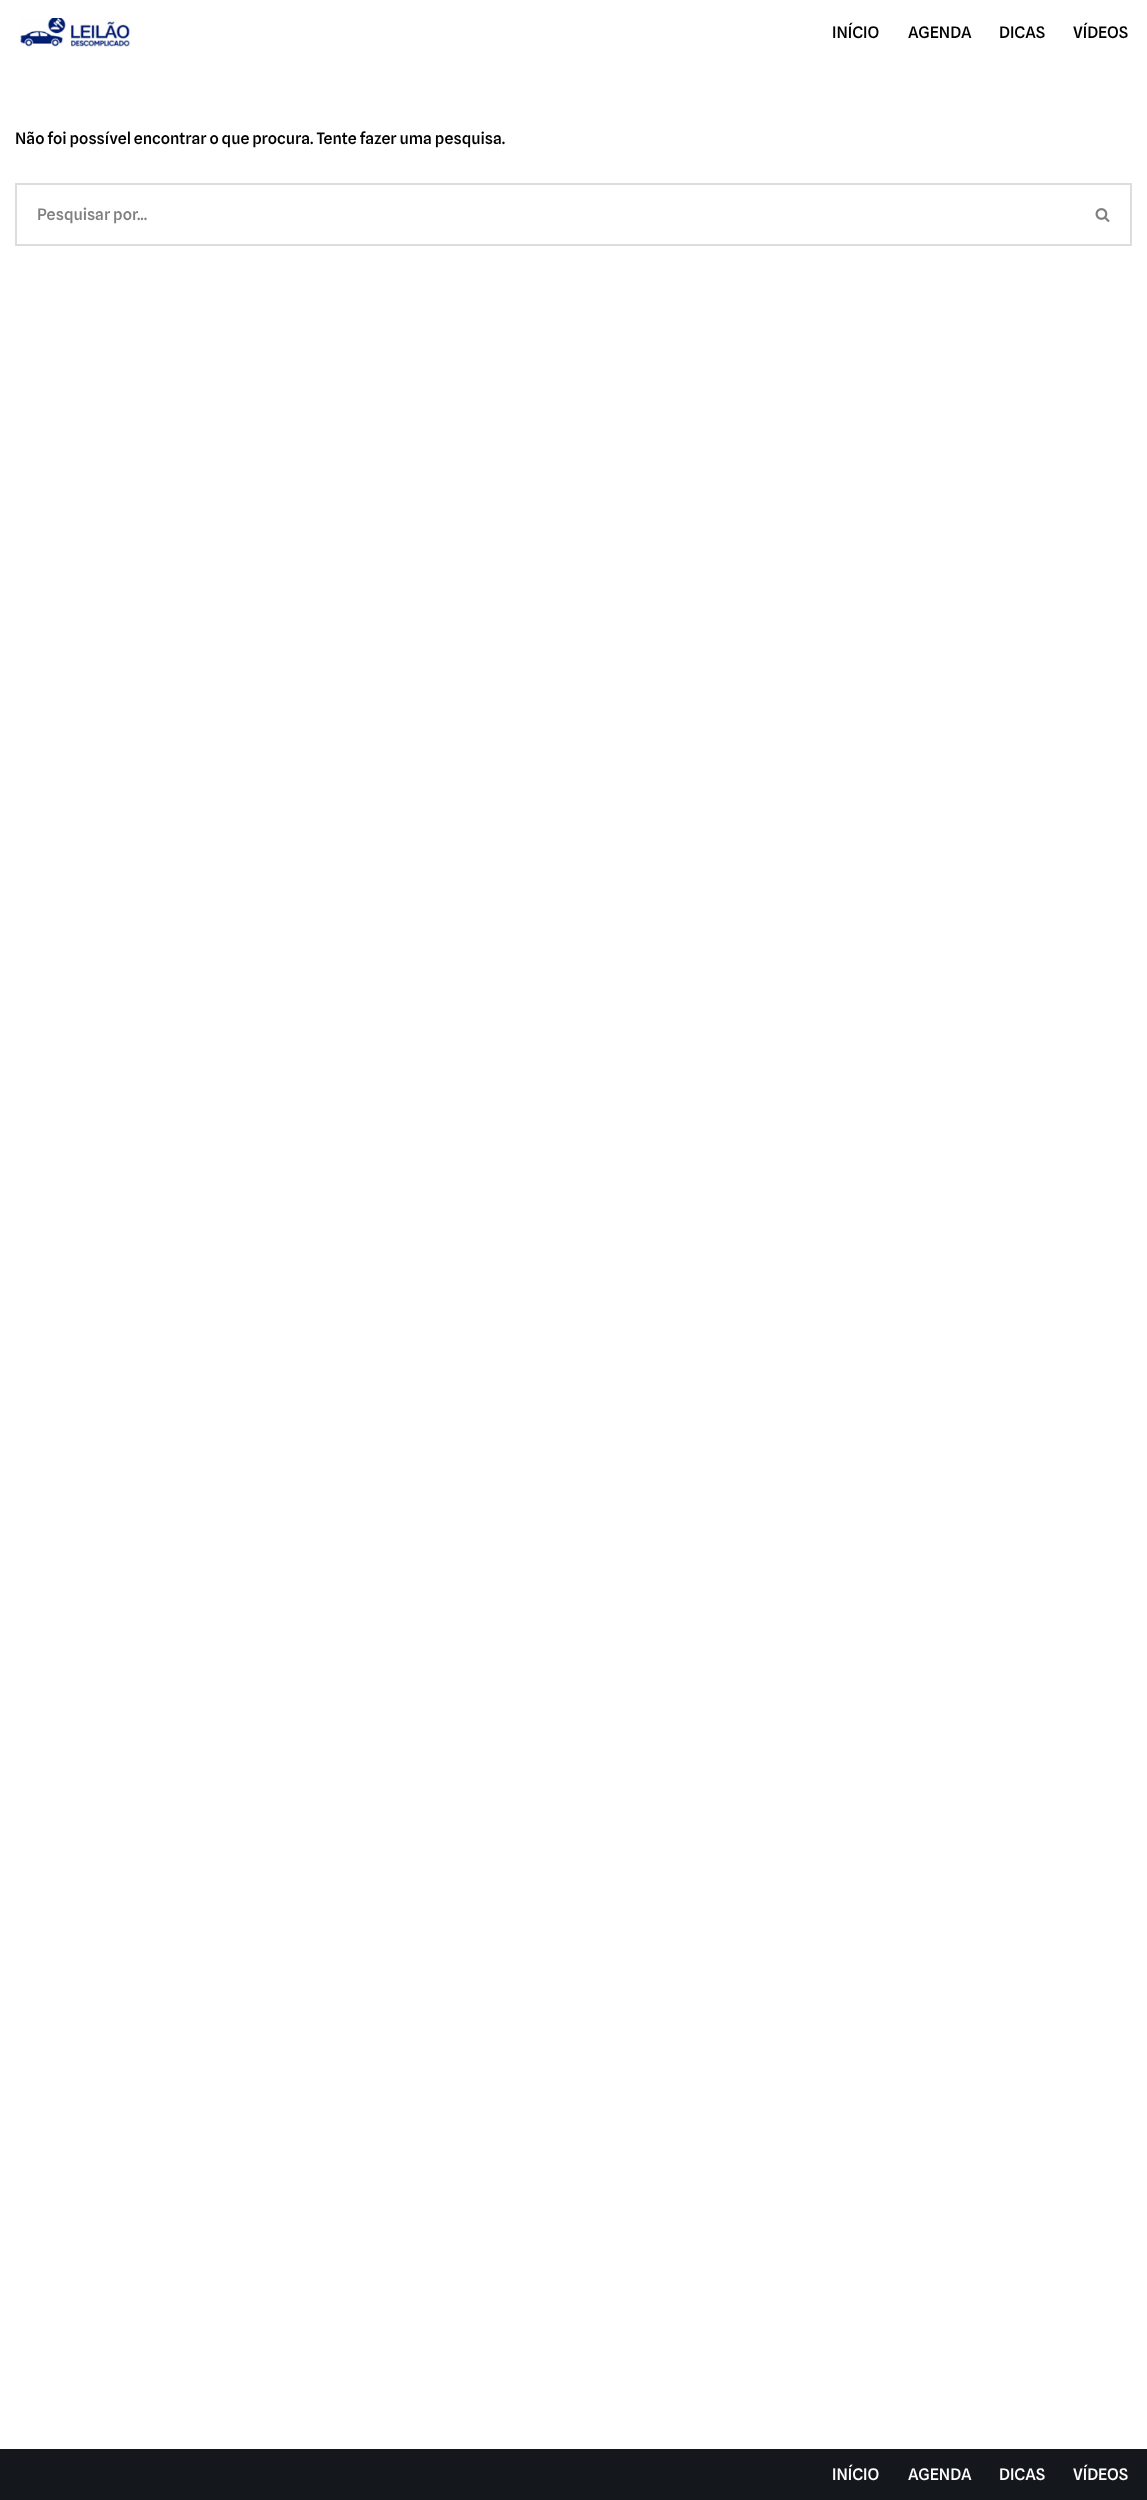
async function draw(canvas) {
	canvas.width = 1147;
	canvas.height = 2500;
	const c = canvas.getContext('2d');
	c.miterLimit = 4;
	c.fontKerning = 'normal';
	async function loadImage(src) {
		const img = new Image();
		img.src = src;
		await img.decode();
		return img;
	}

	c.fillStyle = '#fff';
	c.fillRect(0, 0, 1147, 2500);
	c.drawImage(await loadImage('img1.png'), 20, 18, 110, 29);
	c.font = '500 16px Spline Sans';
	c.fillStyle = '#000';
	for (const [text, x, y] of [
		['INÍCIO', 832, 38],
		['AGENDA', 908, 38],
		['DICAS', 999, 38],
		['VÍDEOS', 1073, 38],
		['Não foi possível encontrar o que procura. Tente fazer uma pesquisa.', 15, 144],
	]) {
		c.fillText(text, x, y);
	}
	for (const [x, y, w, h, color] of [
		[15, 183, 1117, 2, '#ddd'],
		[15, 244, 1060, 2, '#ddd'],
		[15, 183, 2, 63, '#ddd'],
	]) {
		c.fillStyle = color;
		c.fillRect(x, y, w, h);
	}
	c.fillStyle = '#808080';
	c.fillText('Pesquisar por...', 37, 220);
	c.fillStyle = '#ddd';
	c.fillRect(1130, 183, 2, 63);
	c.fillRect(1075, 244, 57, 2);
	c.drawImage(await loadImage('img2.png'), 1095, 208, 15, 14);
	c.fillStyle = '#14171c';
	c.fillRect(0, 2449, 1147, 51);
	c.fillStyle = '#fff';
	for (const [text, x, y] of [
		['INÍCIO', 832, 2480],
		['AGENDA', 908, 2480],
		['DICAS', 999, 2480],
		['VÍDEOS', 1073, 2480],
	]) {
		c.fillText(text, x, y);
	}
}

draw(document.querySelector('canvas'));
